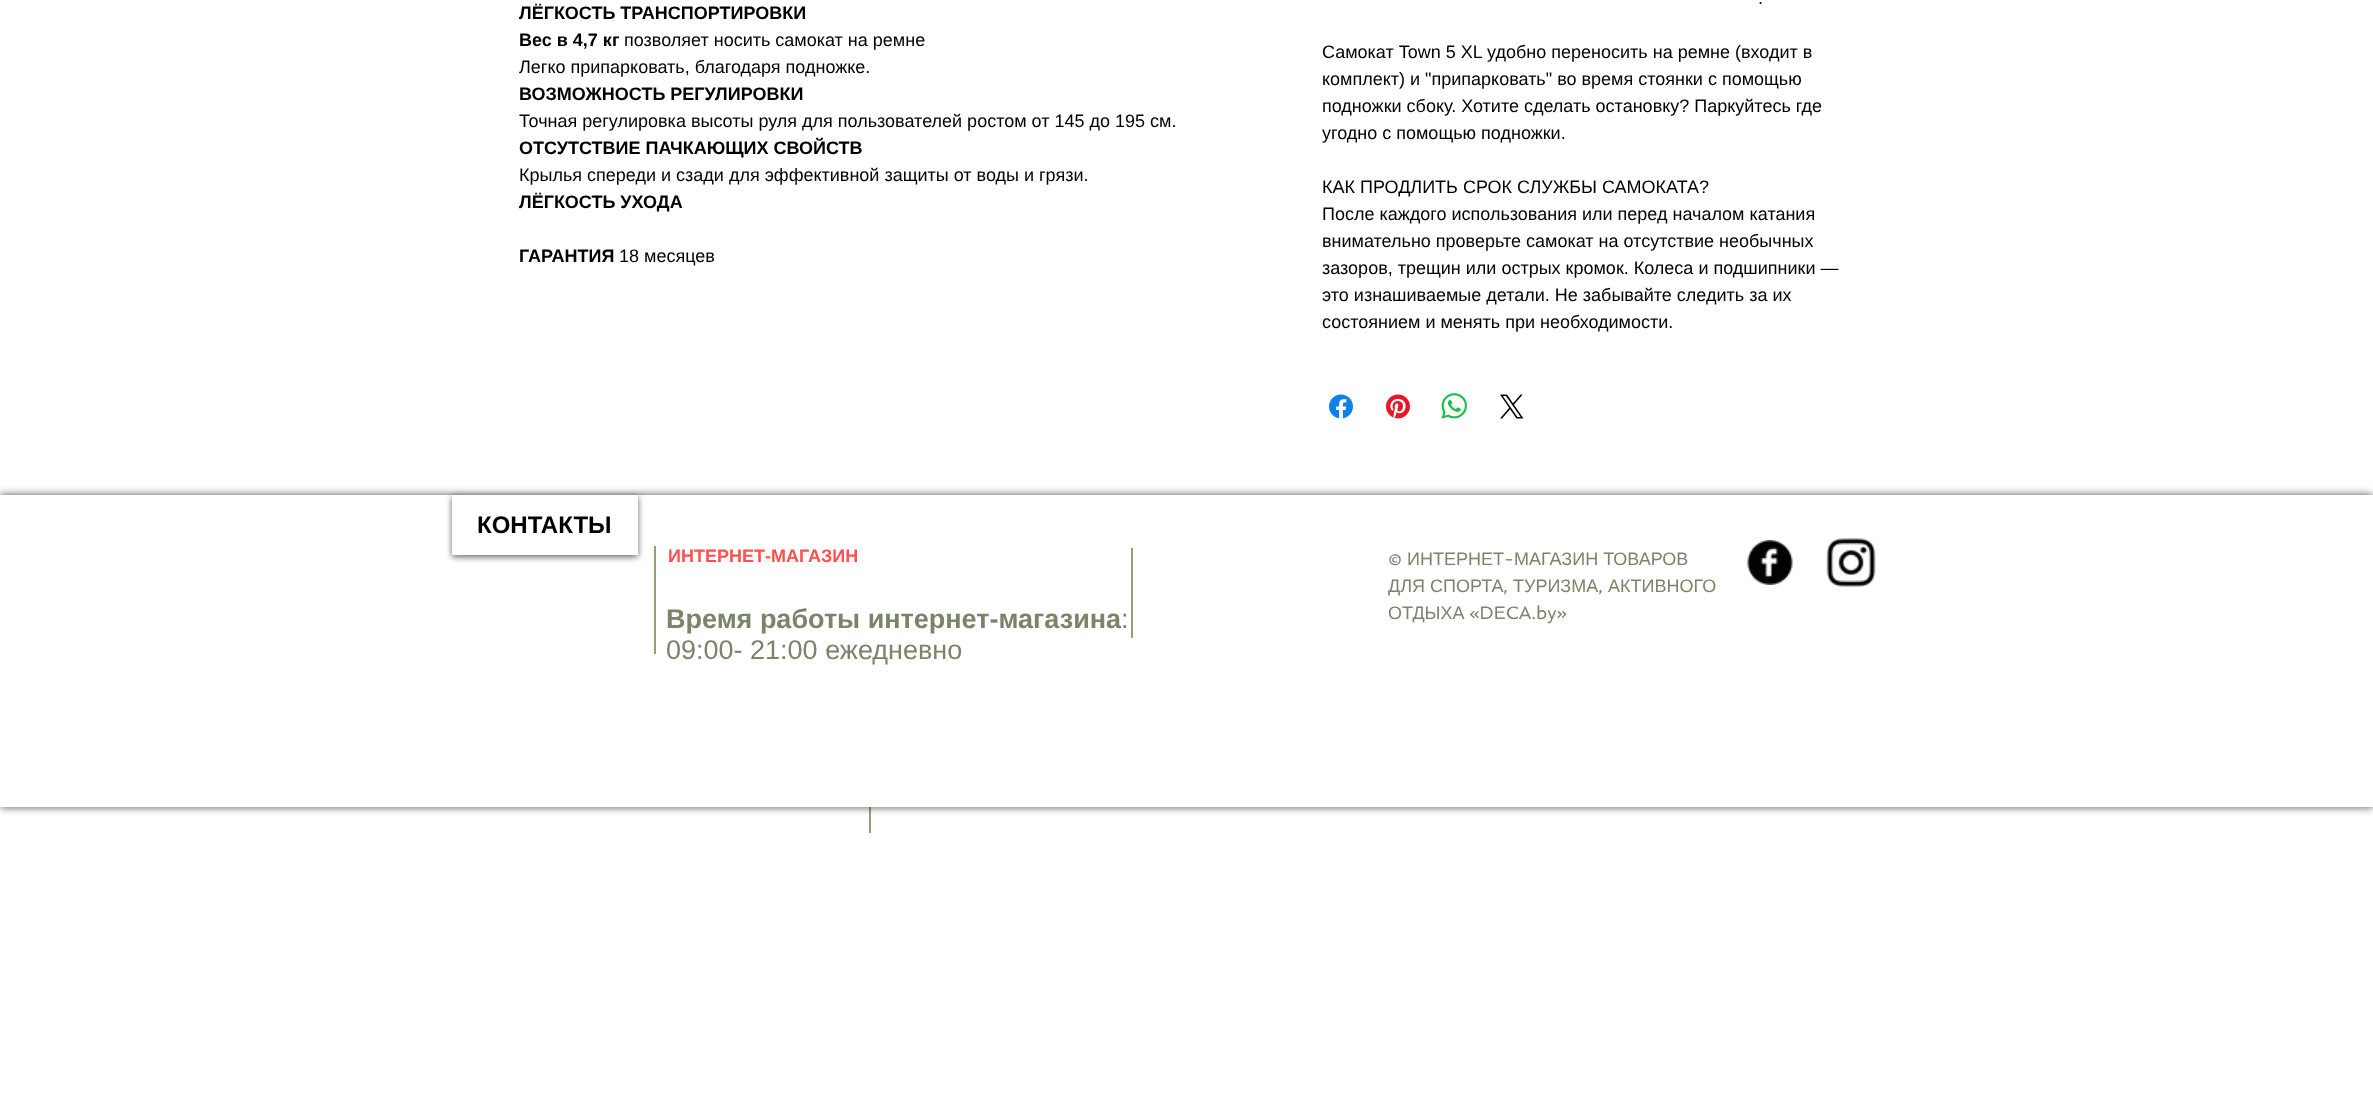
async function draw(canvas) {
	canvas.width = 2373;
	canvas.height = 1101;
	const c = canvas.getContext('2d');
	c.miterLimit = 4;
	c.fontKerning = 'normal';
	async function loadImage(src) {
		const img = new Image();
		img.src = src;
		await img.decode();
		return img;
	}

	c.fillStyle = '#fff';
	c.fillRect(0, 0, 2373, 1101);
	c.font = 'bold 18px Liberation Sans';
	c.fillStyle = '#000';
	c.fillText('ЛЁГКОСТЬ ТРАНСПОРТИРОВКИ', 519, 19);
	c.fillText('Вес в 4,7 кг', 519, 46);
	c.font = '18px Liberation Sans';
	c.fillText('позволяет носить самокат на ремне', 624, 46);
	c.fillText('Легко припарковать, благодаря подножке.', 519, 73);
	c.font = 'bold 18px Liberation Sans';
	c.fillText('ВОЗМОЖНОСТЬ РЕГУЛИРОВКИ', 519, 100);
	c.font = '18px Liberation Sans';
	c.fillText('Точная регулировка высоты руля для пользователей ростом от 145 до 195 см.', 519, 127);
	c.font = 'bold 18px Liberation Sans';
	c.fillText('ОТСУТСТВИЕ ПАЧКАЮЩИХ СВОЙСТВ', 519, 154);
	c.font = '18px Liberation Sans';
	c.fillText('Крылья спереди и сзади для эффективной защиты от воды и грязи.', 519, 181);
	c.font = 'bold 18px Liberation Sans';
	c.fillText('ЛЁГКОСТЬ УХОДА', 519, 208);
	c.fillText('ГАРАНТИЯ', 519, 262);
	c.font = '18px Liberation Sans';
	for (const [text, x, y] of [
		['18 месяцев', 619, 262],
		['.', 1758, 4],
		['Самокат Town 5 XL удобно переносить на ремне (входит в', 1322, 58],
		['комплект) и "припарковать" во время стоянки с помощью', 1322, 85],
		['подножки сбоку. Хотите сделать остановку? Паркуйтесь где', 1322, 112],
		['угодно с помощью подножки.', 1322, 139],
		['КАК ПРОДЛИТЬ СРОК СЛУЖБЫ САМОКАТА?', 1322, 193],
		['После каждого использования или перед началом катания', 1322, 220],
		['внимательно проверьте самокат на отсутствие необычных', 1322, 247],
		['зазоров, трещин или острых кромок. Колеса и подшипники —', 1322, 274],
		['это изнашиваемые детали. Не забывайте следить за их', 1322, 301],
		['состоянием и менять при необходимости.', 1322, 328],
	]) {
		c.fillText(text, x, y);
	}
	c.drawImage(await loadImage('img1.png'), 1329, 394, 24, 25);
	c.drawImage(await loadImage('img2.png'), 1386, 394, 24, 25);
	c.drawImage(await loadImage('img3.png'), 1441, 393, 26, 26);
	c.drawImage(await loadImage('img4.png'), 1500, 394, 24, 25);
	c.fillStyle = '#92a174';
	c.fillRect(869, 807, 2, 26);
	c.fillStyle = '#000000b3';
	c.filter = 'blur(4px)';
	c.beginPath();
	c.rect(0, 495, 2373, 312);
	c.fill();
	c.filter = 'none';
	c.fillStyle = '#fff';
	c.fillRect(0, 495, 2373, 312);
	c.fillStyle = '#00000099';
	c.filter = 'blur(3px)';
	c.beginPath();
	c.rect(452, 497, 186, 60);
	c.fill();
	c.filter = 'none';
	c.fillStyle = '#fff';
	c.fillRect(452, 495, 186, 60);
	c.font = 'bold 24px Liberation Sans';
	c.fillStyle = '#000';
	c.fillText('КОНТАКТЫ', 477, 533);
	c.fillStyle = '#92a174';
	c.fillRect(654, 546, 2, 108);
	c.font = 'bold 18px Liberation Sans';
	c.fillStyle = '#ff4f4f';
	c.fillText('ИНТЕРНЕТ-МАГАЗИН', 668, 562);
	c.fillStyle = '#92a174';
	c.fillRect(1131, 548, 2, 90);
	c.font = '18px Spinnaker';
	c.fillStyle = '#7a8469';
	c.fillText('©', 1388, 565);
	c.font = '18px Liberation Sans';
	c.fillText('ИНТЕРНЕТ', 1407, 565);
	c.font = '18px Spinnaker';
	c.fillText('-', 1504, 565);
	c.font = '18px Liberation Sans';
	c.fillText('МАГАЗИН ТОВАРОВ', 1514, 565);
	c.fillText('ДЛЯ СПОРТА', 1388, 592);
	c.font = '18px Spinnaker';
	c.fillText(',', 1503, 592);
	c.font = '18px Liberation Sans';
	c.fillText('ТУРИЗМА', 1513, 592);
	c.font = '18px Spinnaker';
	c.fillText(',', 1598, 592);
	c.font = '18px Liberation Sans';
	c.fillText('АКТИВНОГО', 1608, 592);
	c.fillText('ОТДЫХА', 1388, 619);
	c.font = '18px Spinnaker';
	c.fillText('«DECA.by»', 1469, 619);
	c.drawImage(await loadImage('img5.png'), 1747, 540, 46, 45);
	c.drawImage(await loadImage('img6.png'), 1826, 538, 50, 49);
	c.font = 'bold 27px Liberation Sans';
	c.fillText('Время работы интернет-магазина', 666, 628);
	c.font = '27px Liberation Sans';
	c.fillText(':', 1121, 628);
	c.fillText('09:00- 21:00 ежедневно', 666, 659);
}

draw(document.querySelector('canvas'));
